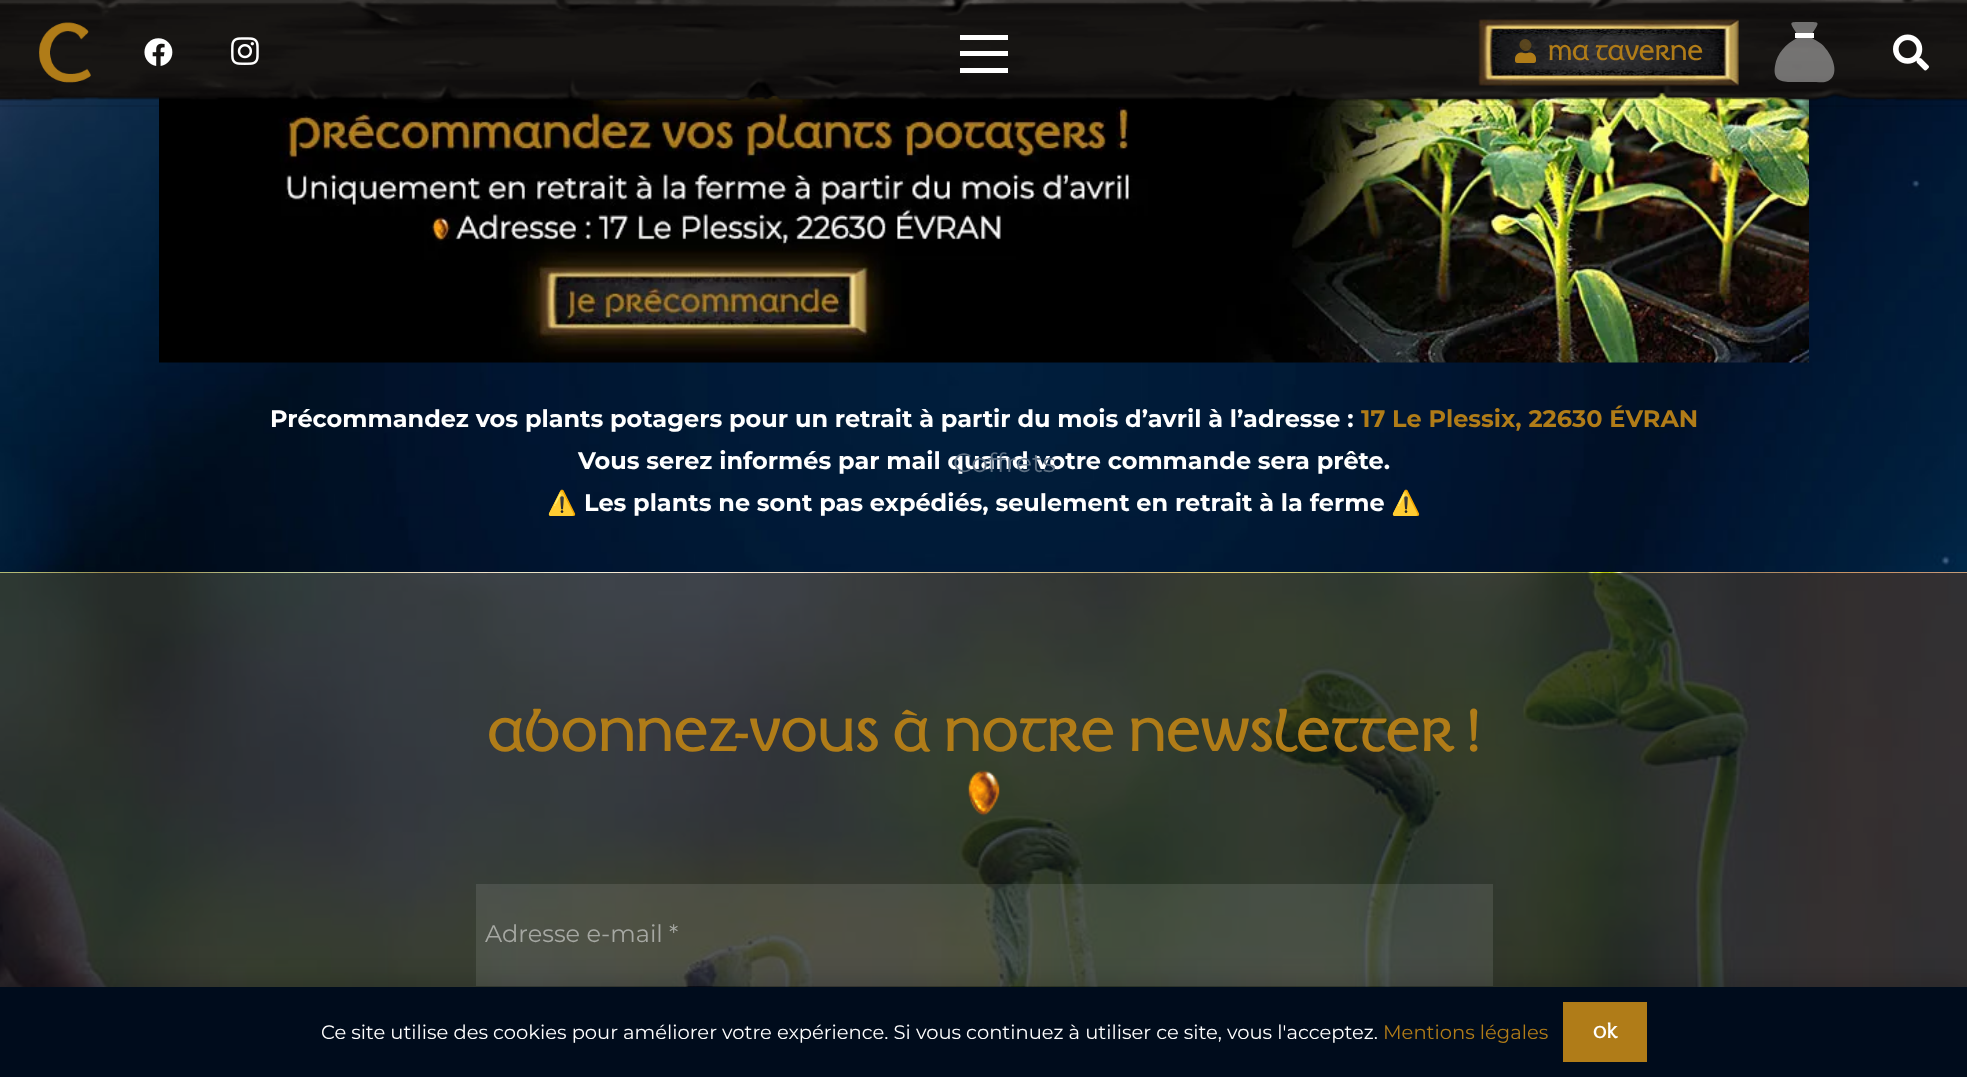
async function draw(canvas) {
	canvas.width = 1967;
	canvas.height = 1077;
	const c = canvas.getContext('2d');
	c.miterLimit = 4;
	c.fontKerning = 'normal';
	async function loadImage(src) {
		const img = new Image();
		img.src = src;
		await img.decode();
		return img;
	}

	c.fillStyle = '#fff';
	c.fillRect(0, 0, 1967, 1077);
	c.drawImage(await loadImage('img1.png'), 0, 94, 1967, 478);
	c.drawImage(await loadImage('img9.png'), 159, 91, 1650, 272);
	c.fillStyle = '#00000014';
	c.fillRect(0, 105, 1967, 2);
	c.drawImage(await loadImage('img2.png'), 0, 0, 1967, 103);
	c.drawImage(await loadImage('img3.png'), 39, 22, 52, 61);
	c.drawImage(await loadImage('img4.png'), 144, 38, 29, 28);
	c.drawImage(await loadImage('img5.png'), 231, 37, 28, 28);
	c.drawImage(await loadImage('img6.png'), 1478, 19, 261, 67);
	c.fillStyle = '#b07c1866';
	c.beginPath();
	c.moveTo(1529.5, 41);
	c.bezierCurveTo(1535.5, 46.5, 1527, 55, 1521.5, 49);
	c.bezierCurveTo(1515.5, 43.5, 1524, 35, 1529.5, 41);
	c.closePath();
	c.fill();
	c.drawImage(await loadImage('img7.png'), 1515, 52, 21, 11);
	c.font = '24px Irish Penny';
	c.fillStyle = '#b07c18';
	c.fillText('MA TAVERNE', 1548, 60);
	c.fillStyle = '#fff';
	c.fillRect(1795, 33, 19, 5);
	c.fillStyle = '#ffffff66';
	c.beginPath();
	c.moveTo(1797, 34);
	c.bezierCurveTo(1789, 21, 1788, 22, 1804, 22);
	c.bezierCurveTo(1821, 22, 1820, 21, 1812, 34);
	c.closePath();
	c.moveTo(1812, 38);
	c.bezierCurveTo(1817, 41, 1823, 44, 1826, 49);
	c.bezierCurveTo(1833, 57, 1840, 75, 1828, 81);
	c.bezierCurveTo(1824, 83, 1820, 82, 1816, 82);
	c.lineTo(1799, 82);
	c.bezierCurveTo(1786, 82, 1772, 84, 1775, 66);
	c.bezierCurveTo(1777, 53, 1786, 44, 1797, 38);
	c.closePath();
	c.fill();
	c.drawImage(await loadImage('img8.png'), 1893, 34, 36, 37);
	for (const [x, y, w, h, color] of [
		[960, 51, 48, 5, '#fff'],
		[960, 35, 48, 5, '#fff'],
		[960, 68, 48, 5, '#fff'],
	]) {
		c.fillStyle = color;
		c.fillRect(x, y, w, h);
	}
	c.font = 'bold 24px Montserrat';
	c.fillText('Vous serez informés par mail quand votre commande sera prête.', 578, 469);
	c.font = '26.5px Montserrat';
	c.fillStyle = '#5d6f82';
	c.fillText('Coffrets', 953, 472);
	c.font = 'bold 24px Montserrat';
	c.fillStyle = '#fff';
	c.fillText('Précommandez vos plants potagers pour un retrait à partir du mois d’avril à l’adresse :', 270, 427);
	c.fillStyle = '#b07c18';
	c.fillText('17 Le Plessix, 22630 ÉVRAN', 1361, 427);
	c.font = 'bold 24px Noto Color Emoji';
	c.fillStyle = '#fff';
	c.fillText('⚠️', 547, 511);
	c.font = 'bold 24px Montserrat';
	c.fillText('Les plants ne sont pas expédiés, seulement en retrait à la ferme', 584, 511);
	c.font = 'bold 24px Noto Color Emoji';
	c.fillText('⚠️', 1391, 511);
	c.drawImage(await loadImage('img10.png'), 0, 572, 1967, 415);
	c.drawImage(await loadImage('img11.png'), 967, 770, 33, 46);
	c.font = '52.75px Irish Penny';
	c.fillStyle = '#b07c18';
	c.fillText('ABONNEZ-VOUS À NOTRE NEWSLETTER !', 487, 751);
	c.fillStyle = '#ffffff1a';
	c.fillRect(476, 884, 1017, 102);
	c.font = '24px Montserrat';
	c.fillStyle = '#a6a8a3';
	c.fillText('Adresse e-mail *', 485, 942);
	c.fillStyle = '#00000026';
	c.filter = 'blur(11px)';
	c.beginPath();
	c.rect(0, 980, 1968, 90);
	c.fill();
	c.filter = 'none';
	c.fillStyle = '#000c1c';
	c.fillRect(0, 987, 1967, 90);
	c.font = '19.5px Montserrat';
	c.fillStyle = '#fff';
	c.fillText('Ce site utilise des cookies pour améliorer votre expérience. Si vous continuez à utiliser ce site, vous l\'acceptez.', 321, 1039);
	c.fillStyle = '#b07c18';
	c.fillText('Mentions légales', 1383, 1039);
	c.fillRect(1563, 1002, 84, 60);
	c.font = '19.5px Irish Penny';
	c.fillStyle = '#fff';
	c.fillText('OK', 1593, 1038);
}

draw(document.querySelector('canvas'));
